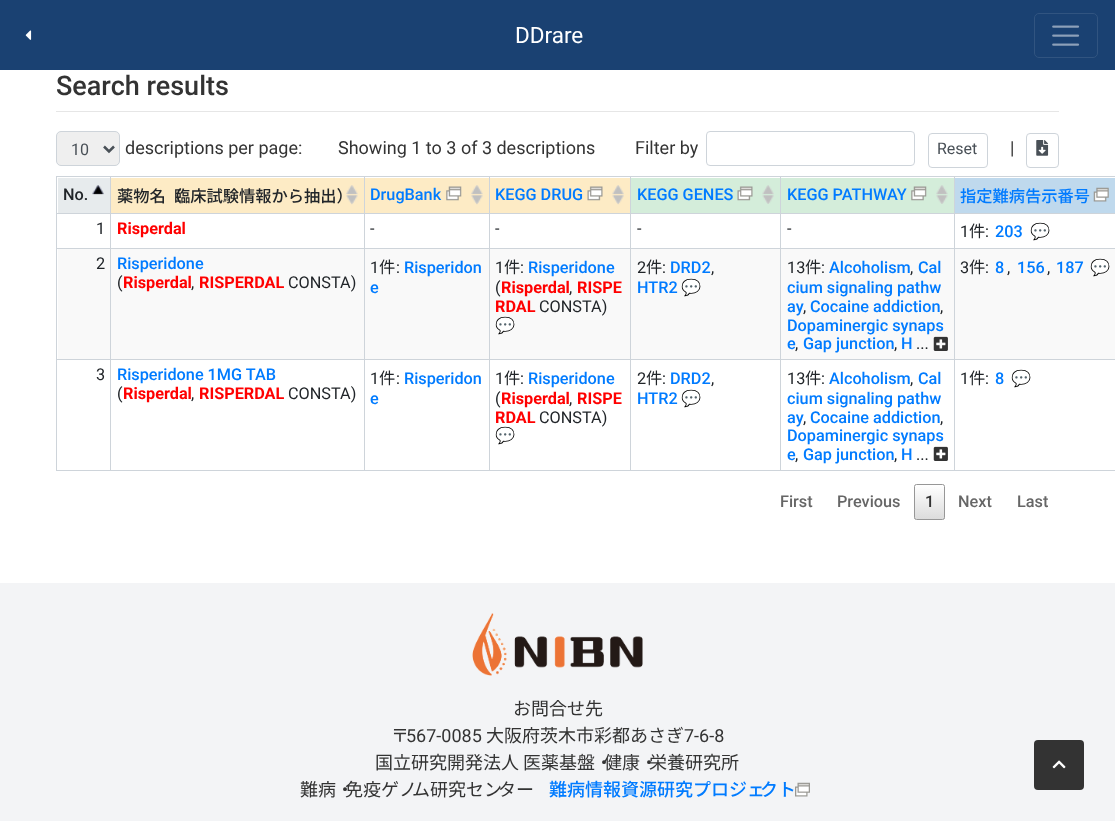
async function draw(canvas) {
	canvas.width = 1115;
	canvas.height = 821;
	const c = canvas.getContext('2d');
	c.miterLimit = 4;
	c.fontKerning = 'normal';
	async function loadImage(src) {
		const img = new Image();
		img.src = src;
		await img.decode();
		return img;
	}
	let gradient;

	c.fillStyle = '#fff';
	c.fillRect(0, 0, 1115, 821);
	c.fillStyle = '#1a4172';
	c.fillRect(0, 0, 1115, 70);
	c.drawImage(await loadImage('img1.png'), 25, 30, 7, 10);
	c.font = '22.5px Roboto';
	c.fillStyle = '#fff';
	c.fillText('DDrare', 515, 43);
	c.beginPath();
	c.roundRect(1034.5, 13.5, 63, 44, 4.5);
	c.strokeStyle = '#315480';
	c.stroke();
	c.drawImage(await loadImage('img2.png'), 1052, 25, 28, 21);
	c.font = '500 27px Roboto';
	c.fillStyle = '#333';
	c.fillText('Search results', 56, 95);
	c.fillStyle = '#e6e6e6';
	c.fillRect(56, 111, 1003, 1);
	c.fillStyle = '#efefef';
	c.beginPath();
	c.roundRect(56.5, 131.5, 63, 34, 4.5);
	c.fill();
	c.strokeStyle = '#ced4da';
	c.stroke();
	c.beginPath();
	c.moveTo(104, 146.5);
	c.lineTo(109, 151.5);
	c.lineTo(114, 146.5);
	c.strokeStyle = '#495057';
	c.lineWidth = 2.5;
	c.stroke();
	c.font = '16px Roboto';
	c.fillStyle = '#495057';
	c.fillText('10', 71, 155);
	c.font = '18px Roboto';
	c.fillStyle = '#333';
	for (const [text, x, y] of [
		['descriptions per page:', 125, 154],
		['Showing 1 to 3 of 3 descriptions', 338, 154],
		['Filter by', 635, 154],
	]) {
		c.fillText(text, x, y);
	}
	c.beginPath();
	c.roundRect(706.5, 131.5, 208, 34, 3.5);
	c.strokeStyle = '#ced4da';
	c.lineWidth = 1;
	c.stroke();
	c.beginPath();
	c.roundRect(928.5, 133.5, 59, 34, 3.5);
	c.stroke();
	c.font = '16px Roboto';
	c.fillStyle = '#495057';
	c.fillText('Reset', 937, 154);
	c.font = '18px Roboto';
	c.fillStyle = '#333';
	c.fillText('|', 1010, 154);
	c.beginPath();
	c.roundRect(1026.5, 133.5, 32, 34, 3.5);
	c.stroke();
	c.drawImage(await loadImage('img3.png'), 1036, 140, 13, 16);
	c.fillStyle = '#e7ebed';
	c.fillRect(58, 178, 52, 35);
	c.drawImage(await loadImage('img4.png'), 92, 185, 12, 10);
	for (const [x, y, w, h, color] of [
		[954, 176, 161, 1, '#ced4da'],
		[954, 213, 161, 1, '#ced4da'],
		[954, 248, 161, 1, '#ced4da'],
		[58, 249, 1057, 110, '#f9f9f9'],
		[954, 359, 161, 1, '#ced4da'],
		[954, 470, 161, 1, '#ced4da'],
		[954, 359, 1, 112, '#ced4da'],
		[780, 359, 175, 1, '#ced4da'],
		[954, 248, 1, 112, '#ced4da'],
		[780, 248, 175, 1, '#ced4da'],
		[954, 213, 1, 36, '#ced4da'],
		[780, 213, 175, 1, '#ced4da'],
		[954, 176, 1, 38, '#ced4da'],
		[780, 176, 175, 1, '#ced4da'],
		[780, 470, 175, 1, '#ced4da'],
		[780, 359, 1, 112, '#ced4da'],
		[630, 359, 151, 1, '#ced4da'],
		[780, 248, 1, 112, '#ced4da'],
		[630, 248, 151, 1, '#ced4da'],
		[780, 213, 1, 36, '#ced4da'],
		[630, 213, 151, 1, '#ced4da'],
		[780, 176, 1, 38, '#ced4da'],
		[630, 176, 151, 1, '#ced4da'],
		[630, 470, 151, 1, '#ced4da'],
		[630, 359, 1, 112, '#ced4da'],
		[489, 359, 142, 1, '#ced4da'],
		[630, 248, 1, 112, '#ced4da'],
		[489, 248, 142, 1, '#ced4da'],
		[630, 213, 1, 36, '#ced4da'],
		[489, 213, 142, 1, '#ced4da'],
		[630, 176, 1, 38, '#ced4da'],
		[489, 176, 142, 1, '#ced4da'],
		[489, 470, 142, 1, '#ced4da'],
		[489, 359, 1, 112, '#ced4da'],
		[364, 359, 126, 1, '#ced4da'],
		[489, 248, 1, 112, '#ced4da'],
		[364, 248, 126, 1, '#ced4da'],
		[489, 213, 1, 36, '#ced4da'],
		[364, 213, 126, 1, '#ced4da'],
		[489, 176, 1, 38, '#ced4da'],
		[364, 176, 126, 1, '#ced4da'],
		[364, 470, 126, 1, '#ced4da'],
		[364, 359, 1, 112, '#ced4da'],
		[110, 359, 255, 1, '#ced4da'],
		[364, 248, 1, 112, '#ced4da'],
		[110, 248, 255, 1, '#ced4da'],
		[364, 213, 1, 36, '#ced4da'],
		[110, 213, 255, 1, '#ced4da'],
		[364, 176, 1, 38, '#ced4da'],
		[110, 176, 255, 1, '#ced4da'],
		[110, 470, 255, 1, '#ced4da'],
		[110, 359, 1, 112, '#ced4da'],
		[56, 359, 55, 1, '#ced4da'],
		[110, 248, 1, 112, '#ced4da'],
		[56, 248, 55, 1, '#ced4da'],
		[110, 213, 1, 36, '#ced4da'],
		[56, 213, 55, 1, '#ced4da'],
		[110, 176, 1, 38, '#ced4da'],
		[56, 176, 55, 1, '#ced4da'],
		[56, 470, 55, 1, '#ced4da'],
		[56, 359, 1, 112, '#ced4da'],
		[56, 248, 1, 112, '#ced4da'],
		[56, 213, 1, 36, '#ced4da'],
		[56, 176, 1, 38, '#ced4da'],
	]) {
		c.fillStyle = color;
		c.fillRect(x, y, w, h);
	}
	c.font = '500 16.25px Roboto';
	c.fillStyle = '#212529';
	c.fillText('No.', 63, 200);
	c.fillStyle = '#fdebc5';
	c.fillRect(111, 178, 253, 35);
	c.drawImage(await loadImage('img5.png'), 346, 185, 12, 20);
	c.font = '500 16.25px Noto Sans JP';
	c.fillStyle = '#212529';
	c.fillText('薬物名（', 117, 202);
	c.fillText('臨床試験情報から抽出）', 174, 202);
	c.fillStyle = '#fdebc5';
	c.fillRect(365, 178, 124, 35);
	c.drawImage(await loadImage('img6.png'), 471, 185, 12, 20);
	c.font = '500 16.25px Roboto';
	c.fillStyle = '#007bff';
	c.fillText('DrugBank', 370, 200);
	c.drawImage(await loadImage('img7.png'), 446, 186, 16, 15);
	c.fillStyle = '#fdebc5';
	c.fillRect(490, 178, 140, 35);
	c.drawImage(await loadImage('img8.png'), 612, 185, 12, 20);
	c.fillStyle = '#007bff';
	c.fillText('KEGG DRUG', 495, 200);
	c.drawImage(await loadImage('img9.png'), 587, 186, 16, 15);
	c.fillStyle = '#d4edda';
	c.fillRect(631, 178, 149, 35);
	c.drawImage(await loadImage('img10.png'), 762, 185, 12, 19);
	c.fillStyle = '#007bff';
	c.fillText('KEGG GENES', 637, 200);
	c.drawImage(await loadImage('img11.png'), 737, 186, 16, 15);
	c.fillStyle = '#d4edda';
	c.fillRect(781, 178, 173, 35);
	c.drawImage(await loadImage('img12.png'), 936, 185, 12, 19);
	c.fillStyle = '#007bff';
	c.fillText('KEGG PATHWAY', 787, 200);
	c.drawImage(await loadImage('img13.png'), 911, 186, 16, 15);
	c.fillStyle = '#bfd9ed';
	c.fillRect(955, 178, 160, 35);
	c.font = '500 16.25px Noto Sans JP';
	c.fillStyle = '#007bff';
	c.fillText('指定難病告示番号', 960, 202);
	c.drawImage(await loadImage('img14.png'), 1093, 187, 16, 15);
	c.font = '16.25px Roboto';
	c.fillStyle = '#212529';
	c.fillText('1', 96, 234);
	c.font = 'bold 16.25px Roboto';
	c.fillStyle = '#f00';
	c.fillText('Risperdal', 117, 234);
	c.font = '16.25px Roboto';
	c.fillStyle = '#212529';
	for (const [text, x, y] of [
		['-', 370, 234],
		['-', 495, 234],
		['-', 637, 234],
		['-', 787, 234],
		['1', 960, 237],
	]) {
		c.fillText(text, x, y);
	}
	c.font = '16.25px Noto Sans JP';
	c.fillText('件', 969, 237);
	c.font = '16.25px Roboto';
	c.fillText(':', 985, 237);
	c.font = '500 16.25px Roboto';
	c.fillStyle = '#007bff';
	c.fillText('203', 995, 237);
	c.font = '16.25px Noto Color Emoji';
	c.fillStyle = '#212529';
	c.fillText('💬', 1030, 237);
	c.font = '16.25px Roboto';
	c.fillText('2', 96, 269);
	c.font = '500 16.25px Roboto';
	c.fillStyle = '#007bff';
	c.fillText('Risperidone', 117, 269);
	c.font = '16.25px Roboto';
	c.fillStyle = '#212529';
	c.fillText('(', 117, 288);
	c.font = 'bold 16.25px Roboto';
	c.fillStyle = '#f00';
	c.fillText('Risperdal', 123, 288);
	c.font = '16.25px Roboto';
	c.fillStyle = '#212529';
	c.fillText(',', 191, 288);
	c.font = 'bold 16.25px Roboto';
	c.fillStyle = '#f00';
	c.fillText('RISPERDAL', 199, 288);
	c.font = '16.25px Roboto';
	c.fillStyle = '#212529';
	c.fillText('CONSTA)', 288, 288);
	c.fillText('1', 370, 273);
	c.font = '16.25px Noto Sans JP';
	c.fillText('件', 379, 273);
	c.font = '16.25px Roboto';
	c.fillText(':', 396, 273);
	c.font = '500 16.25px Roboto';
	c.fillStyle = '#007bff';
	c.fillText('Risperidon', 404, 273);
	c.fillText('e', 370, 293);
	c.font = '16.25px Roboto';
	c.fillStyle = '#212529';
	c.fillText('1', 495, 273);
	c.font = '16.25px Noto Sans JP';
	c.fillText('件', 504, 273);
	c.font = '16.25px Roboto';
	c.fillText(':', 520, 273);
	c.font = '500 16.25px Roboto';
	c.fillStyle = '#007bff';
	c.fillText('Risperidone', 528, 273);
	c.font = '16.25px Roboto';
	c.fillStyle = '#212529';
	c.fillText('(', 495, 293);
	c.font = 'bold 16.25px Roboto';
	c.fillStyle = '#f00';
	c.fillText('Risperdal', 501, 293);
	c.font = '16.25px Roboto';
	c.fillStyle = '#212529';
	c.fillText(',', 569, 293);
	c.font = 'bold 16.25px Roboto';
	c.fillStyle = '#f00';
	c.fillText('RISPE', 577, 293);
	c.fillText('RDAL', 495, 312);
	c.font = '16.25px Roboto';
	c.fillStyle = '#212529';
	c.fillText('CONSTA)', 539, 312);
	c.font = '16.25px Noto Color Emoji';
	c.fillText('💬', 495, 331);
	c.font = '16.25px Roboto';
	c.fillText('2', 637, 273);
	c.font = '16.25px Noto Sans JP';
	c.fillText('件', 646, 273);
	c.font = '16.25px Roboto';
	c.fillText(':', 662, 273);
	c.font = '500 16.25px Roboto';
	c.fillStyle = '#007bff';
	c.fillText('DRD2', 670, 273);
	c.font = '16.25px Roboto';
	c.fillStyle = '#212529';
	c.fillText(',', 711, 273);
	c.font = '500 16.25px Roboto';
	c.fillStyle = '#007bff';
	c.fillText('HTR2', 637, 293);
	c.font = '16.25px Noto Color Emoji';
	c.fillStyle = '#212529';
	c.fillText('💬', 681, 293);
	c.font = '16.25px Roboto';
	c.fillText('13', 787, 273);
	c.font = '16.25px Noto Sans JP';
	c.fillText('件', 805, 273);
	c.font = '16.25px Roboto';
	c.fillText(':', 821, 273);
	c.font = '500 16.25px Roboto';
	c.fillStyle = '#007bff';
	c.fillText('Alcoholism', 829, 273);
	c.font = '16.25px Roboto';
	c.fillStyle = '#212529';
	c.fillText(',', 910, 273);
	c.font = '500 16.25px Roboto';
	c.fillStyle = '#007bff';
	for (const [text, x, y] of [
		['Cal', 918, 273],
		['cium signaling pathw', 787, 293],
		['ay', 787, 312],
	]) {
		c.fillText(text, x, y);
	}
	c.font = '16.25px Roboto';
	c.fillStyle = '#212529';
	c.fillText(',', 803, 312);
	c.font = '500 16.25px Roboto';
	c.fillStyle = '#007bff';
	c.fillText('Cocaine addiction', 810, 312);
	c.font = '16.25px Roboto';
	c.fillStyle = '#212529';
	c.fillText(',', 940, 312);
	c.font = '500 16.25px Roboto';
	c.fillStyle = '#007bff';
	c.fillText('Dopaminergic synaps', 787, 331);
	c.fillText('e', 787, 349);
	c.font = '16.25px Roboto';
	c.fillStyle = '#212529';
	c.fillText(',', 795, 349);
	c.font = '500 16.25px Roboto';
	c.fillStyle = '#007bff';
	c.fillText('Gap junction', 803, 349);
	c.font = '16.25px Roboto';
	c.fillStyle = '#212529';
	c.fillText(',', 894, 349);
	c.font = '500 16.25px Roboto';
	c.fillStyle = '#007bff';
	c.fillText('H', 901, 349);
	c.font = '16.25px Roboto';
	c.fillStyle = '#212529';
	c.fillText('...', 916, 349);
	c.drawImage(await loadImage('img15.png'), 933, 336, 15, 15);
	c.fillText('3', 960, 273);
	c.font = '16.25px Noto Sans JP';
	c.fillText('件', 969, 273);
	c.font = '16.25px Roboto';
	c.fillText(':', 985, 273);
	c.font = '500 16.25px Roboto';
	c.fillStyle = '#007bff';
	c.fillText('8', 995, 273);
	c.font = '16.25px Roboto';
	c.fillStyle = '#212529';
	c.fillText(',', 1007, 273);
	c.font = '500 16.25px Roboto';
	c.fillStyle = '#007bff';
	c.fillText('156', 1017, 273);
	c.font = '16.25px Roboto';
	c.fillStyle = '#212529';
	c.fillText(',', 1047, 273);
	c.font = '500 16.25px Roboto';
	c.fillStyle = '#007bff';
	c.fillText('187', 1056, 273);
	c.font = '16.25px Noto Color Emoji';
	c.fillStyle = '#212529';
	c.fillText('💬', 1090, 273);
	c.font = '16.25px Roboto';
	c.fillText('3', 96, 380);
	c.font = '500 16.25px Roboto';
	c.fillStyle = '#007bff';
	c.fillText('Risperidone 1MG TAB', 117, 380);
	c.font = '16.25px Roboto';
	c.fillStyle = '#212529';
	c.fillText('(', 117, 399);
	c.font = 'bold 16.25px Roboto';
	c.fillStyle = '#f00';
	c.fillText('Risperdal', 123, 399);
	c.font = '16.25px Roboto';
	c.fillStyle = '#212529';
	c.fillText(',', 191, 399);
	c.font = 'bold 16.25px Roboto';
	c.fillStyle = '#f00';
	c.fillText('RISPERDAL', 199, 399);
	c.font = '16.25px Roboto';
	c.fillStyle = '#212529';
	c.fillText('CONSTA)', 288, 399);
	c.fillText('1', 370, 384);
	c.font = '16.25px Noto Sans JP';
	c.fillText('件', 379, 384);
	c.font = '16.25px Roboto';
	c.fillText(':', 396, 384);
	c.font = '500 16.25px Roboto';
	c.fillStyle = '#007bff';
	c.fillText('Risperidon', 404, 384);
	c.fillText('e', 370, 404);
	c.font = '16.25px Roboto';
	c.fillStyle = '#212529';
	c.fillText('1', 495, 384);
	c.font = '16.25px Noto Sans JP';
	c.fillText('件', 504, 384);
	c.font = '16.25px Roboto';
	c.fillText(':', 520, 384);
	c.font = '500 16.25px Roboto';
	c.fillStyle = '#007bff';
	c.fillText('Risperidone', 528, 384);
	c.font = '16.25px Roboto';
	c.fillStyle = '#212529';
	c.fillText('(', 495, 404);
	c.font = 'bold 16.25px Roboto';
	c.fillStyle = '#f00';
	c.fillText('Risperdal', 501, 404);
	c.font = '16.25px Roboto';
	c.fillStyle = '#212529';
	c.fillText(',', 569, 404);
	c.font = 'bold 16.25px Roboto';
	c.fillStyle = '#f00';
	c.fillText('RISPE', 577, 404);
	c.fillText('RDAL', 495, 423);
	c.font = '16.25px Roboto';
	c.fillStyle = '#212529';
	c.fillText('CONSTA)', 539, 423);
	c.font = '16.25px Noto Color Emoji';
	c.fillText('💬', 495, 441);
	c.font = '16.25px Roboto';
	c.fillText('2', 637, 384);
	c.font = '16.25px Noto Sans JP';
	c.fillText('件', 646, 384);
	c.font = '16.25px Roboto';
	c.fillText(':', 662, 384);
	c.font = '500 16.25px Roboto';
	c.fillStyle = '#007bff';
	c.fillText('DRD2', 670, 384);
	c.font = '16.25px Roboto';
	c.fillStyle = '#212529';
	c.fillText(',', 711, 384);
	c.font = '500 16.25px Roboto';
	c.fillStyle = '#007bff';
	c.fillText('HTR2', 637, 404);
	c.font = '16.25px Noto Color Emoji';
	c.fillStyle = '#212529';
	c.fillText('💬', 681, 404);
	c.font = '16.25px Roboto';
	c.fillText('13', 787, 384);
	c.font = '16.25px Noto Sans JP';
	c.fillText('件', 805, 384);
	c.font = '16.25px Roboto';
	c.fillText(':', 821, 384);
	c.font = '500 16.25px Roboto';
	c.fillStyle = '#007bff';
	c.fillText('Alcoholism', 829, 384);
	c.font = '16.25px Roboto';
	c.fillStyle = '#212529';
	c.fillText(',', 910, 384);
	c.font = '500 16.25px Roboto';
	c.fillStyle = '#007bff';
	for (const [text, x, y] of [
		['Cal', 918, 384],
		['cium signaling pathw', 787, 404],
		['ay', 787, 423],
	]) {
		c.fillText(text, x, y);
	}
	c.font = '16.25px Roboto';
	c.fillStyle = '#212529';
	c.fillText(',', 803, 423);
	c.font = '500 16.25px Roboto';
	c.fillStyle = '#007bff';
	c.fillText('Cocaine addiction', 810, 423);
	c.font = '16.25px Roboto';
	c.fillStyle = '#212529';
	c.fillText(',', 940, 423);
	c.font = '500 16.25px Roboto';
	c.fillStyle = '#007bff';
	c.fillText('Dopaminergic synaps', 787, 441);
	c.fillText('e', 787, 460);
	c.font = '16.25px Roboto';
	c.fillStyle = '#212529';
	c.fillText(',', 795, 460);
	c.font = '500 16.25px Roboto';
	c.fillStyle = '#007bff';
	c.fillText('Gap junction', 803, 460);
	c.font = '16.25px Roboto';
	c.fillStyle = '#212529';
	c.fillText(',', 894, 460);
	c.font = '500 16.25px Roboto';
	c.fillStyle = '#007bff';
	c.fillText('H', 901, 460);
	c.font = '16.25px Roboto';
	c.fillStyle = '#212529';
	c.fillText('...', 916, 460);
	c.drawImage(await loadImage('img16.png'), 933, 446, 15, 15);
	c.fillText('1', 960, 384);
	c.font = '16.25px Noto Sans JP';
	c.fillText('件', 969, 384);
	c.font = '16.25px Roboto';
	c.fillText(':', 985, 384);
	c.font = '500 16.25px Roboto';
	c.fillStyle = '#007bff';
	c.fillText('8', 995, 384);
	c.font = '16.25px Noto Color Emoji';
	c.fillStyle = '#212529';
	c.fillText('💬', 1011, 384);
	c.font = '500 16.25px Roboto';
	c.fillStyle = '#666';
	c.fillText('First', 780, 507);
	c.fillText('Previous', 837, 507);
	c.save();
	c.beginPath();
	c.roundRect(914, 484, 31, 36, 2.5);
	c.clip();
	gradient = c.createLinearGradient(929, 485, 929, 519);
	gradient.addColorStop(0, '#fff');
	gradient.addColorStop(1, '#dcdcdc');
	c.fillStyle = gradient;
	c.fillRect(914, 485, 31, 34);
	c.restore();
	c.beginPath();
	c.roundRect(914.5, 484.5, 30, 35, 2);
	c.strokeStyle = '#979797';
	c.stroke();
	c.fillStyle = '#333';
	c.fillText('1', 925, 507);
	c.fillStyle = '#666';
	c.fillText('Next', 958, 507);
	c.fillText('Last', 1017, 507);
	c.fillStyle = '#f3f4f6';
	c.fillRect(0, 583, 1115, 238);
	c.drawImage(await loadImage('img17.png'), 472, 613, 171, 63);
	c.font = '18px Noto Sans JP';
	c.fillStyle = '#333';
	c.fillText('お問合せ先', 513, 715);
	c.fillText('〒', 391, 742);
	c.font = '18px Roboto';
	c.fillText('567-0085', 406, 742);
	c.font = '18px Noto Sans JP';
	c.fillText('大阪府茨木市彩都あさぎ', 486, 742);
	c.font = '18px Roboto';
	c.fillText('7-6-8', 684, 742);
	c.font = '18px Noto Sans JP';
	c.fillText('国立研究開発法人 医薬基盤・', 375, 769);
	c.fillText('健康・', 604, 769);
	c.fillText('栄養研究所', 649, 769);
	c.fillText('難病・', 300, 796);
	c.fillText('免疫ゲノ', 345, 796);
	c.fillText('ム研究セン', 412, 796);
	c.fillText('ター', 498, 796);
	c.font = '500 18px Noto Sans JP';
	c.fillStyle = '#007bff';
	c.fillText('難病情報資源研究プロジェ', 549, 796);
	c.fillText('クト', 760, 796);
	c.drawImage(await loadImage('img18.png'), 795, 782, 15, 15);
	c.fillStyle = '#333';
	c.beginPath();
	c.roundRect(1034, 740, 50, 50, 4);
	c.fill();
	c.drawImage(await loadImage('img19.png'), 1052, 760, 14, 9);
}

draw(document.querySelector('canvas'));
